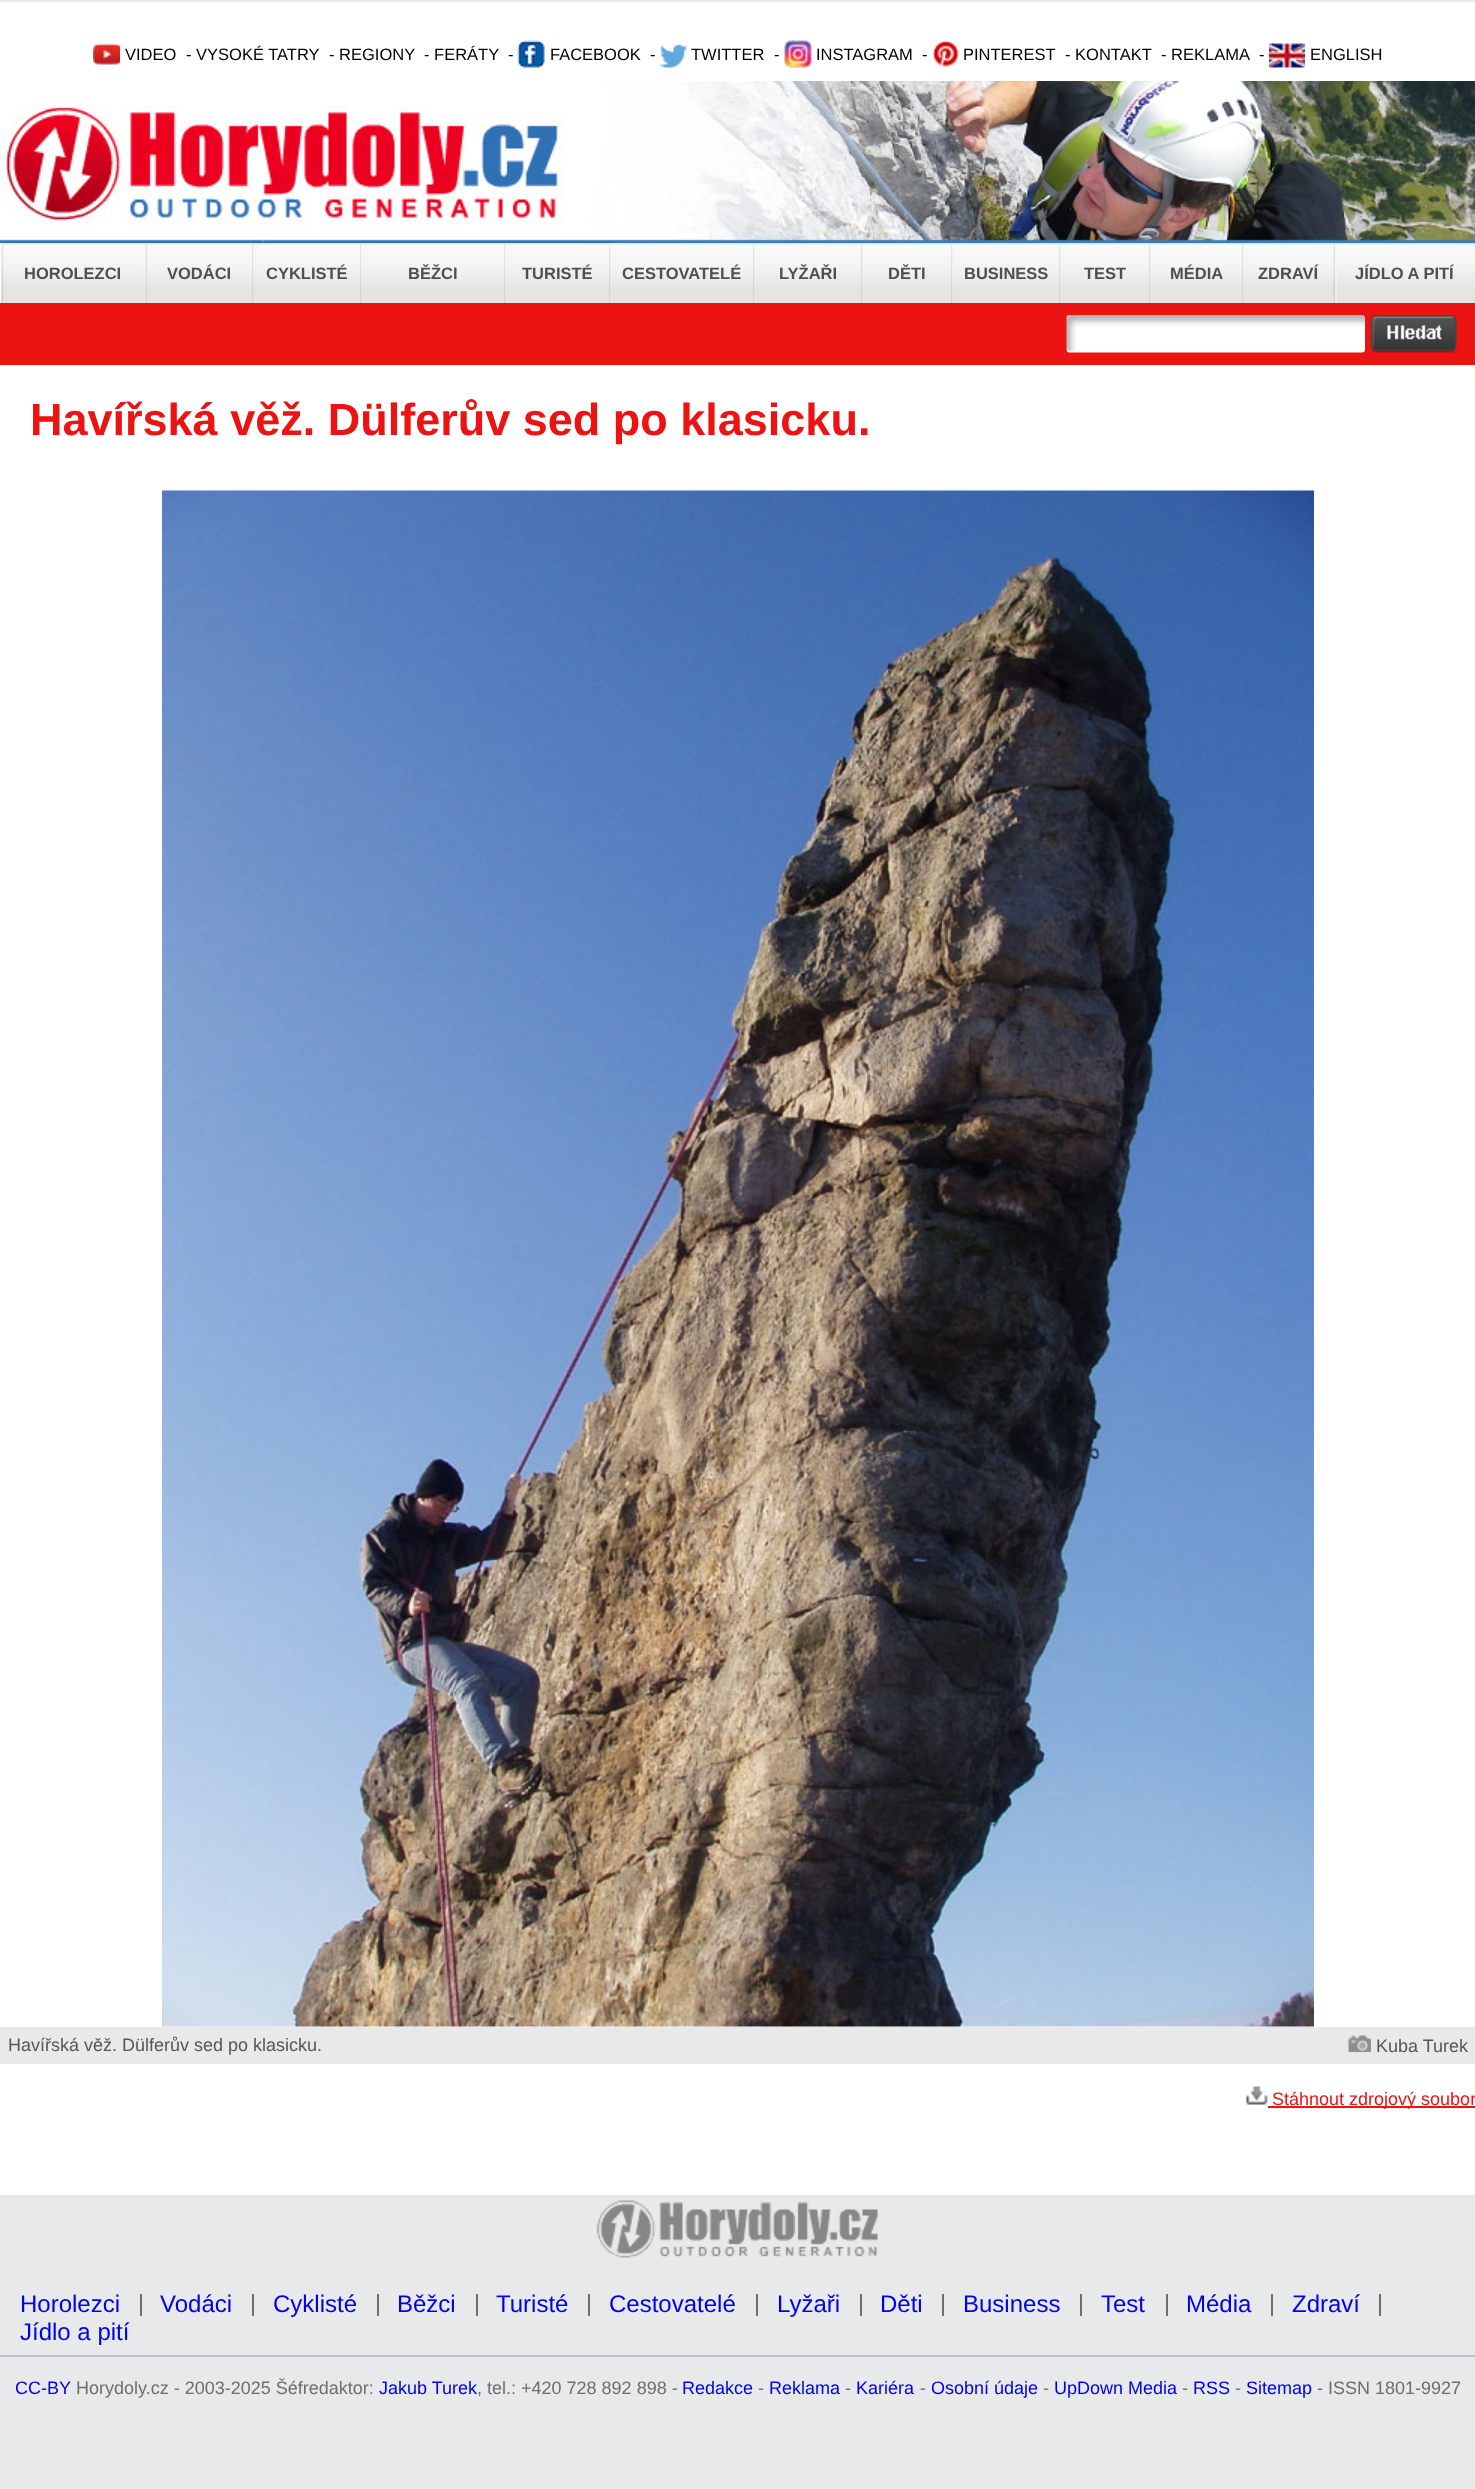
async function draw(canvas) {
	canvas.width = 1475;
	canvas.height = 2489;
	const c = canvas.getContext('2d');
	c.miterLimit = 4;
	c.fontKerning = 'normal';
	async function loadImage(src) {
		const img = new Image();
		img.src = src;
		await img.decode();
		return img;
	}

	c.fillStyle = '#e7e9ea';
	c.fillRect(0, 0, 1475, 2489);
	c.fillStyle = '#fff';
	c.fillRect(0, 2, 1475, 2193);
	c.drawImage(await loadImage('img1.png'), 93, 43, 27, 22);
	c.font = '16.5px Liberation Sans';
	c.fillStyle = '#000';
	for (const [text, x, y] of [
		['VIDEO', 125, 60],
		['- VYSOKÉ TATRY', 186, 60],
		['- REGIONY', 329, 60],
		['- FERÁTY', 424, 60],
		['-', 508, 60],
	]) {
		c.fillText(text, x, y);
	}
	c.drawImage(await loadImage('img2.png'), 517, 40, 28, 28);
	c.fillText('FACEBOOK', 550, 60);
	c.fillText('-', 650, 60);
	c.drawImage(await loadImage('img3.png'), 660, 45, 27, 23);
	c.fillText('TWITTER', 691, 60);
	c.fillText('-', 774, 60);
	c.drawImage(await loadImage('img4.png'), 784, 40, 28, 28);
	c.fillText('INSTAGRAM', 816, 60);
	c.fillText('-', 922, 60);
	c.drawImage(await loadImage('img5.png'), 932, 40, 27, 28);
	for (const [text, x, y] of [
		['PINTEREST', 963, 60],
		['- KONTAKT', 1065, 60],
		['- REKLAMA', 1161, 60],
		['-', 1259, 60],
	]) {
		c.fillText(text, x, y);
	}
	c.drawImage(await loadImage('img6.png'), 1269, 43, 36, 25);
	c.fillText('ENGLISH', 1310, 60);
	c.drawImage(await loadImage('img7.png'), 0, 81, 1475, 162);
	c.drawImage(await loadImage('img8.png'), 1, 243, 1474, 60);
	c.drawImage(await loadImage('img9.png'), 1, 245, 140, 58);
	c.font = 'bold 16.5px Liberation Sans';
	c.fillStyle = '#504f4f';
	c.fillText('HOROLEZCI', 24, 279);
	c.drawImage(await loadImage('img10.png'), 145, 244, 2, 59);
	c.drawImage(await loadImage('img11.png'), 147, 244, 105, 59);
	c.fillText('VODÁCI', 167, 279);
	c.drawImage(await loadImage('img12.png'), 252, 244, 2, 59);
	c.drawImage(await loadImage('img13.png'), 253, 244, 107, 59);
	c.fillText('CYKLISTÉ', 266, 279);
	c.drawImage(await loadImage('img14.png'), 360, 244, 144, 59);
	c.drawImage(await loadImage('img15.png'), 361, 244, 143, 59);
	c.fillText('BĚŽCI', 408, 279);
	c.drawImage(await loadImage('img16.png'), 504, 244, 2, 59);
	c.drawImage(await loadImage('img17.png'), 505, 244, 104, 59);
	c.fillText('TURISTÉ', 522, 279);
	c.drawImage(await loadImage('img18.png'), 609, 244, 144, 59);
	c.drawImage(await loadImage('img19.png'), 610, 244, 143, 59);
	c.fillText('CESTOVATELÉ', 622, 279);
	c.drawImage(await loadImage('img20.png'), 753, 244, 2, 59);
	c.drawImage(await loadImage('img21.png'), 754, 244, 107, 59);
	c.fillText('LYŽAŘI', 779, 279);
	c.drawImage(await loadImage('img12.png'), 861, 244, 2, 59);
	c.drawImage(await loadImage('img22.png'), 862, 244, 89, 59);
	c.fillText('DĚTI', 888, 279);
	c.drawImage(await loadImage('img12.png'), 951, 244, 2, 59);
	c.drawImage(await loadImage('img13.png'), 952, 244, 107, 59);
	c.fillText('BUSINESS', 964, 279);
	c.drawImage(await loadImage('img23.png'), 1059, 244, 2, 59);
	c.drawImage(await loadImage('img24.png'), 1060, 244, 89, 59);
	c.fillText('TEST', 1084, 279);
	c.drawImage(await loadImage('img20.png'), 1149, 244, 2, 59);
	c.drawImage(await loadImage('img25.png'), 1150, 244, 92, 59);
	c.fillText('MÉDIA', 1170, 279);
	c.drawImage(await loadImage('img26.png'), 1242, 244, 2, 59);
	c.drawImage(await loadImage('img27.png'), 1243, 244, 89, 59);
	c.fillText('ZDRAVÍ', 1258, 279);
	c.drawImage(await loadImage('img28.png'), 1333, 244, 142, 59);
	c.fillText('JÍDLO A PITÍ', 1355, 279);
	c.fillStyle = '#ec1313';
	c.fillRect(0, 303, 1475, 62);
	c.drawImage(await loadImage('img29.png'), 1066, 315, 299, 38);
	c.drawImage(await loadImage('img30.png'), 1371, 315, 86, 38);
	c.font = 'bold 45px Liberation Sans';
	c.fillText('Havířská věž. Dülferův sed po klasicku.', 30, 435);
	c.drawImage(await loadImage('img31.png'), 162, 490, 1152, 1537);
	c.fillStyle = '#e8e9eb';
	c.fillRect(0, 2027, 1475, 37);
	c.font = '18px Liberation Sans';
	c.fillStyle = '#555658';
	c.fillText('Havířská věž. Dülferův sed po klasicku.', 8, 2051);
	c.drawImage(await loadImage('img32.png'), 1348, 2035, 23, 17);
	c.fillText('Kuba Turek', 1376, 2052);
	c.drawImage(await loadImage('img33.png'), 1246, 2086, 22, 19);
	c.fillStyle = '#ec1313';
	c.fillRect(1268, 2106, 207, 2);
	c.fillText('Stáhnout zdrojový soubor', 1272, 2105);
	c.drawImage(await loadImage('img34.png'), 596, 2200, 282, 58);
	c.fillStyle = '#6e6e6e';
	c.fillRect(140, 2294, 2, 22);
	c.font = '24px Liberation Sans';
	c.fillStyle = '#00e';
	c.fillText('Horolezci', 20, 2312);
	c.fillStyle = '#6e6e6e';
	c.fillRect(252, 2294, 2, 22);
	c.fillStyle = '#00e';
	c.fillText('Vodáci', 160, 2312);
	c.fillStyle = '#6e6e6e';
	c.fillRect(377, 2294, 2, 22);
	c.fillStyle = '#00e';
	c.fillText('Cyklisté', 273, 2312);
	c.fillStyle = '#6e6e6e';
	c.fillRect(476, 2294, 2, 22);
	c.fillStyle = '#00e';
	c.fillText('Běžci', 397, 2312);
	c.fillStyle = '#6e6e6e';
	c.fillRect(588, 2294, 2, 22);
	c.fillStyle = '#00e';
	c.fillText('Turisté', 496, 2312);
	c.fillStyle = '#6e6e6e';
	c.fillRect(756, 2294, 2, 22);
	c.fillStyle = '#00e';
	c.fillText('Cestovatelé', 609, 2312);
	c.fillStyle = '#6e6e6e';
	c.fillRect(860, 2294, 2, 22);
	c.fillStyle = '#00e';
	c.fillText('Lyžaři', 777, 2312);
	c.fillStyle = '#6e6e6e';
	c.fillRect(942, 2294, 2, 22);
	c.fillStyle = '#00e';
	c.fillText('Děti', 880, 2312);
	c.fillStyle = '#6e6e6e';
	c.fillRect(1080, 2294, 2, 22);
	c.fillStyle = '#00e';
	c.fillText('Business', 963, 2312);
	c.fillStyle = '#6e6e6e';
	c.fillRect(1166, 2294, 2, 22);
	c.fillStyle = '#00e';
	c.fillText('Test', 1101, 2312);
	c.fillStyle = '#6e6e6e';
	c.fillRect(1271, 2294, 2, 22);
	c.fillStyle = '#00e';
	c.fillText('Média', 1186, 2312);
	c.fillStyle = '#6e6e6e';
	c.fillRect(1379, 2294, 2, 22);
	c.fillStyle = '#00e';
	c.fillText('Zdraví', 1292, 2312);
	c.fillText('Jídlo a pití', 20, 2340);
	c.fillStyle = '#bdc0c2';
	c.fillRect(0, 2355, 1475, 2);
	c.font = '18px Liberation Sans';
	c.fillStyle = '#00e';
	c.fillText('CC-BY', 15, 2394);
	c.fillStyle = '#6e6e6e';
	c.fillText('Horydoly.cz - 2003-2025 Šéfredaktor:', 76, 2394);
	c.fillStyle = '#00e';
	c.fillText('Jakub Turek', 379, 2394);
	c.fillStyle = '#6e6e6e';
	c.fillText(', tel.: +420 728 892 898 -', 477, 2394);
	c.fillStyle = '#00e';
	c.fillText('Redakce', 682, 2394);
	c.fillStyle = '#6e6e6e';
	c.fillText('-', 758, 2394);
	c.fillStyle = '#00e';
	c.fillText('Reklama', 769, 2394);
	c.fillStyle = '#6e6e6e';
	c.fillText('-', 845, 2394);
	c.fillStyle = '#00e';
	c.fillText('Kariéra', 856, 2394);
	c.fillStyle = '#6e6e6e';
	c.fillText('-', 920, 2394);
	c.fillStyle = '#00e';
	c.fillText('Osobní údaje', 931, 2394);
	c.fillStyle = '#6e6e6e';
	c.fillText('-', 1043, 2394);
	c.fillStyle = '#00e';
	c.fillText('UpDown Media', 1054, 2394);
	c.fillStyle = '#6e6e6e';
	c.fillText('-', 1182, 2394);
	c.fillStyle = '#00e';
	c.fillText('RSS', 1193, 2394);
	c.fillStyle = '#6e6e6e';
	c.fillText('-', 1235, 2394);
	c.fillStyle = '#00e';
	c.fillText('Sitemap', 1246, 2394);
	c.fillStyle = '#6e6e6e';
	c.fillText('- ISSN 1801-9927', 1317, 2394);
}

draw(document.querySelector('canvas'));
